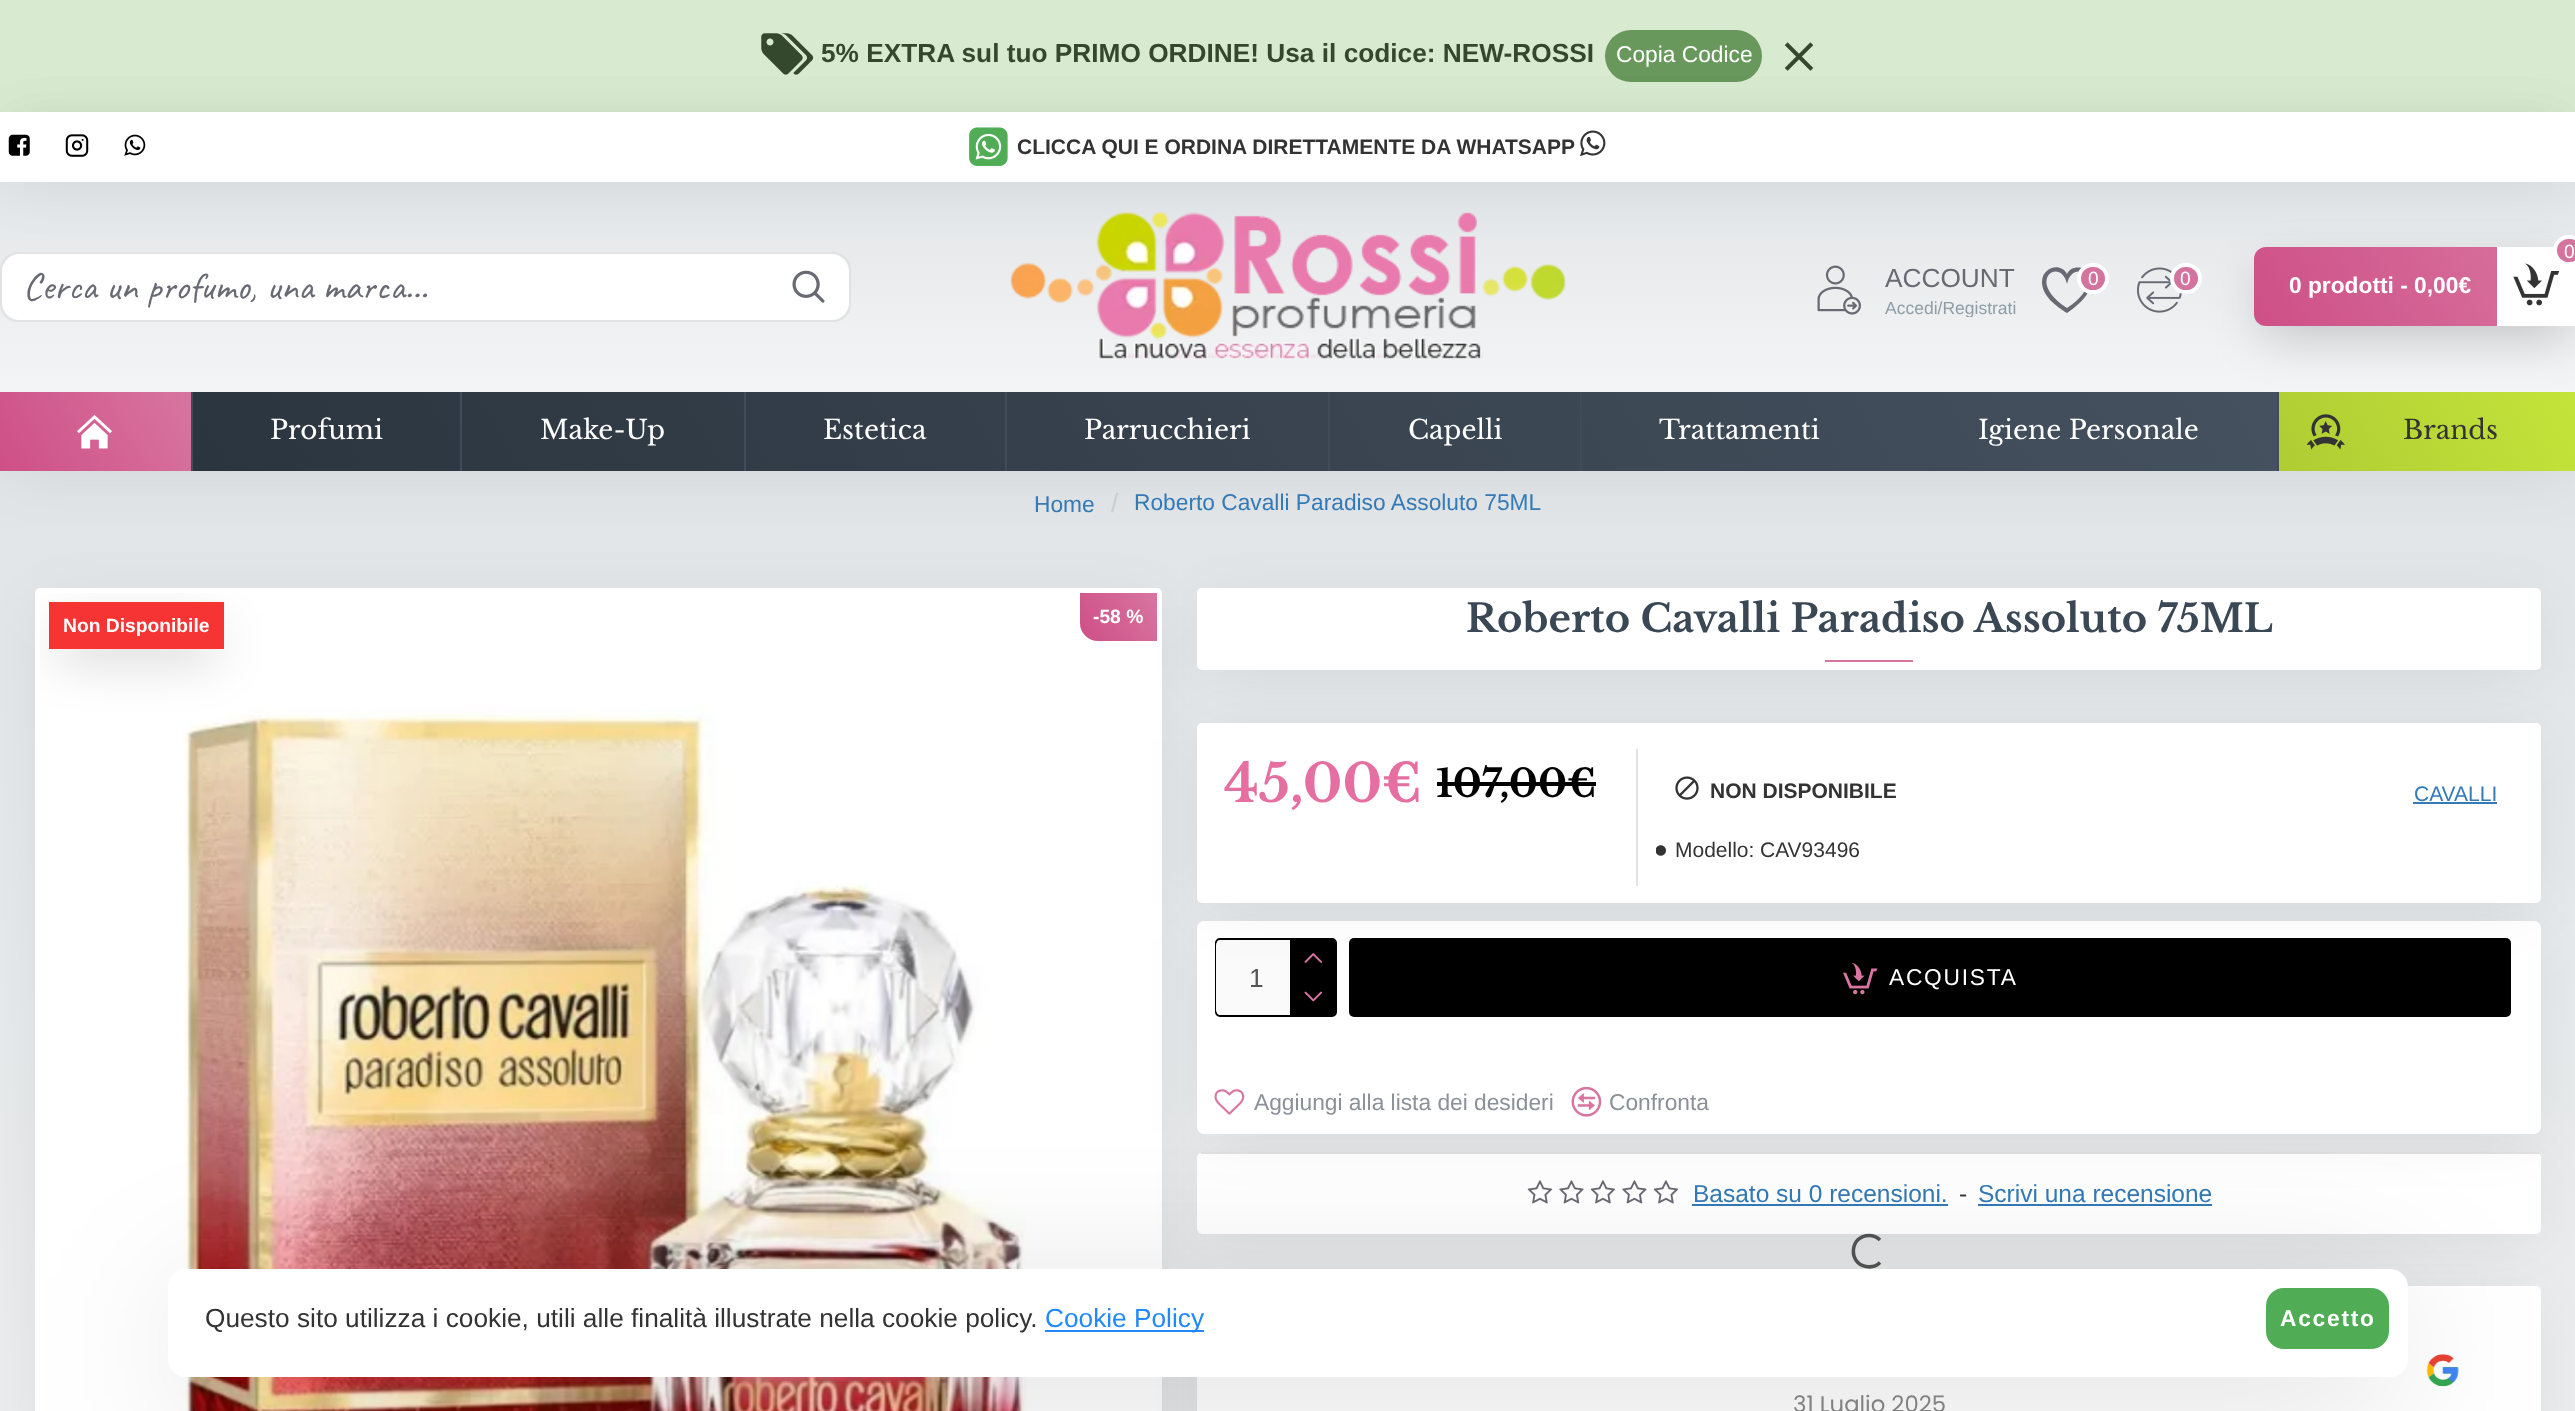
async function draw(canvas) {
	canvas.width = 2575;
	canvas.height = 1411;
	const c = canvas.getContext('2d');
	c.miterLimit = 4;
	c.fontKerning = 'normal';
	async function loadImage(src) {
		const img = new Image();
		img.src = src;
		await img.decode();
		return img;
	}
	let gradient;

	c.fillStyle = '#fff';
	c.fillRect(0, 0, 2575, 1411);
	gradient = c.createLinearGradient(1288, 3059, 1288, 0);
	gradient.addColorStop(0, '#fafafa');
	gradient.addColorStop(1, '#dde1e4');
	c.fillStyle = gradient;
	c.fillRect(0, 471, 2575, 940);
	c.fillStyle = '#d8ead0';
	c.fillRect(0, 0, 2575, 112);
	c.drawImage(await loadImage('img1.png'), 761, 33, 53, 42);
	c.font = 'bold 26.25px Liberation Sans';
	c.fillStyle = '#34482e';
	c.fillText('5% EXTRA sul tuo PRIMO ORDINE! Usa il codice: NEW-ROSSI', 821, 62);
	c.fillStyle = '#68985b';
	c.beginPath();
	c.roundRect(1605, 30, 157, 52, 26);
	c.fill();
	c.font = '22.75px Liberation Sans';
	c.fillStyle = '#fff';
	c.fillText('Copia Codice', 1616, 62);
	c.drawImage(await loadImage('img2.png'), 1784, 42, 30, 29);
	c.fillStyle = '#00000012';
	c.filter = 'blur(30.5px)';
	c.beginPath();
	c.rect(9, 130, 2558, 341);
	c.fill();
	c.filter = 'none';
	gradient = c.createLinearGradient(1288, 471, 1288, 112);
	gradient.addColorStop(0, '#fafafa');
	gradient.addColorStop(1, '#dde1e4');
	c.fillStyle = gradient;
	c.fillRect(0, 182, 2575, 210);
	c.fillStyle = '#00000012';
	c.filter = 'blur(30.5px)';
	c.beginPath();
	c.rect(9, 130, 2558, 52);
	c.fill();
	c.filter = 'none';
	c.fillStyle = '#fff';
	c.fillRect(0, 112, 2575, 70);
	c.drawImage(await loadImage('img3.png'), 8, 134, 22, 22);
	c.drawImage(await loadImage('img4.png'), 65, 134, 24, 23);
	c.drawImage(await loadImage('img5.png'), 124, 134, 22, 22);
	c.drawImage(await loadImage('img6.png'), 969, 127, 39, 39);
	c.font = 'bold 21px Liberation Sans';
	c.fillStyle = '#333';
	c.fillText('CLICCA QUI E ORDINA DIRETTAMENTE DA WHATSAPP', 1017, 154);
	c.drawImage(await loadImage('img7.png'), 1580, 130, 26, 27);
	c.beginPath();
	c.roundRect(1, 253, 849, 68, 17);
	c.strokeStyle = '#e2e2e2';
	c.lineWidth = 2;
	c.stroke();
	c.fillStyle = '#fff';
	c.beginPath();
	c.roundRect(2, 254, 768, 66, [18, 0, 0, 18]);
	c.fill();
	c.font = '38.5px Caveat';
	c.fillStyle = '#696973';
	c.fillText('Cerca un profumo, una marca...', 23, 299);
	c.fillStyle = '#fff';
	c.beginPath();
	c.roundRect(770, 254, 79, 66, [0, 18, 18, 0]);
	c.fill();
	c.drawImage(await loadImage('img8.png'), 792, 270, 33, 33);
	c.drawImage(await loadImage('img9.png'), 1010, 212, 556, 147);
	c.drawImage(await loadImage('img10.png'), 1817, 265, 44, 50);
	c.font = '26.25px Liberation Sans';
	c.fillStyle = '#696973';
	c.fillText('ACCOUNT', 1885, 287);
	c.save();
	c.beginPath();
	c.rect(1885, 256, 131, 61);
	c.clip();
	c.font = '17.5px Liberation Sans';
	c.fillStyle = '#8f9da6';
	c.fillText('Accedi/Registrati', 1885, 314);
	c.restore();
	c.beginPath();
	c.moveTo(2067, 284);
	c.bezierCurveTo(2073, 256, 2110, 280, 2067, 308);
	c.bezierCurveTo(2024, 280, 2061, 256, 2067, 284);
	c.closePath();
	c.moveTo(2042, 282);
	c.bezierCurveTo(2042, 296, 2056, 306, 2067, 313);
	c.bezierCurveTo(2077, 306, 2091, 295, 2091, 282);
	c.bezierCurveTo(2091, 279, 2091, 276, 2089, 273);
	c.bezierCurveTo(2084, 266, 2071, 265, 2067, 274);
	c.bezierCurveTo(2061, 262, 2042, 267, 2042, 282);
	c.closePath();
	c.fill();
	c.fillStyle = '#d4739e';
	c.beginPath();
	c.roundRect(2079, 265, 28, 27, 13.5);
	c.fill();
	c.strokeStyle = '#fff';
	c.lineWidth = 4;
	c.stroke();
	c.font = '19.25px Liberation Sans';
	c.fillStyle = '#fff';
	c.fillText('0', 2088, 285);
	c.drawImage(await loadImage('img11.png'), 2137, 267, 45, 46);
	c.fillStyle = '#d4739e';
	c.beginPath();
	c.roundRect(2172, 265, 28, 27, 13.5);
	c.fill();
	c.stroke();
	c.fillStyle = '#fff';
	c.fillText('0', 2180, 285);
	gradient = c.createLinearGradient(305, 999, 2271, -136);
	gradient.addColorStop(0, '#29323c');
	gradient.addColorStop(1, '#485563');
	c.fillStyle = gradient;
	c.fillRect(193, 392, 2084, 79);
	c.fillStyle = '#00000033';
	c.filter = 'blur(26px)';
	c.beginPath();
	c.roundRect(2263, 273, 304, 61, 4);
	c.fill();
	c.filter = 'none';
	gradient = c.createLinearGradient(2277, 366, 2553, 207);
	gradient.addColorStop(0, '#ce4f86');
	gradient.addColorStop(1, '#d875a0');
	c.fillStyle = gradient;
	c.beginPath();
	c.roundRect(2254, 247, 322, 79, 12);
	c.fill();
	c.fillStyle = '#fff';
	c.fillRect(2497, 247, 78, 79);
	c.drawImage(await loadImage('img12.png'), 2513, 263, 47, 43);
	c.fillStyle = '#d4739e';
	c.beginPath();
	c.roundRect(2555, 237, 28, 27, 13.5);
	c.fill();
	c.stroke();
	c.fillStyle = '#fff';
	c.fillText('0', 2564, 258);
	c.font = 'bold 22.75px Liberation Sans';
	c.fillText('0 prodotti - 0,00€', 2289, 293);
	gradient = c.createLinearGradient(6.8, 483, 184, 380);
	gradient.addColorStop(0, '#ce4f86');
	gradient.addColorStop(1, '#d875a0');
	c.fillStyle = gradient;
	c.fillRect(0, 392, 191, 79);
	c.drawImage(await loadImage('img13.png'), 77, 415, 35, 34);
	c.fillStyle = '#414c58';
	c.fillRect(191, 392, 2, 79);
	c.font = '26.25px Libre Baskerville';
	c.fillStyle = '#fff';
	c.fillText('Profumi', 270, 439);
	c.fillStyle = '#414c58';
	c.fillRect(460, 392, 2, 79);
	c.fillStyle = '#fff';
	c.fillText('Make-Up', 540, 439);
	c.fillStyle = '#414c58';
	c.fillRect(744, 392, 2, 79);
	c.fillStyle = '#fff';
	c.fillText('Estetica', 823, 439);
	c.fillStyle = '#414c58';
	c.fillRect(1005, 392, 2, 79);
	c.fillStyle = '#fff';
	c.fillText('Parrucchieri', 1084, 439);
	c.fillStyle = '#414c58';
	c.fillRect(1328, 392, 2, 79);
	c.fillStyle = '#fff';
	c.fillText('Capelli', 1408, 439);
	c.fillStyle = '#414c58';
	c.fillRect(1580, 392, 2, 79);
	c.fillStyle = '#fff';
	c.fillText('Trattamenti', 1659, 439);
	c.fillText('Igiene Personale', 1978, 439);
	gradient = c.createLinearGradient(2299, 506, 2556, 357);
	gradient.addColorStop(0, '#afcc33');
	gradient.addColorStop(1, '#c4e43a');
	c.fillStyle = gradient;
	c.fillRect(2279, 392, 296, 79);
	c.fillStyle = '#414c58';
	c.fillRect(2277, 392, 2, 79);
	c.drawImage(await loadImage('img14.png'), 2306, 414, 39, 36);
	c.fillStyle = '#333';
	c.fillText('Brands', 2403, 439);
	c.font = '22.75px Liberation Sans';
	c.fillStyle = '#337ab7';
	c.fillText('Home', 1034, 512);
	c.font = '26.25px Liberation Sans';
	c.fillStyle = '#ccc';
	c.fillText('/', 1111, 512);
	c.font = '22.75px Liberation Sans';
	c.fillStyle = '#337ab7';
	c.fillText('Roberto Cavalli Paradiso Assoluto 75ML', 1134, 510);
	c.fillStyle = '#00000012';
	c.filter = 'blur(30.5px)';
	c.beginPath();
	c.rect(44, 606, 1109, 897);
	c.fill();
	c.filter = 'none';
	c.beginPath();
	c.roundRect(37.5, 590.5, 1122, 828, 2.5);
	c.lineWidth = 5;
	c.stroke();
	c.filter = 'blur(30.5px)';
	c.beginPath();
	c.rect(1206, 606, 1326, 64);
	c.fill();
	c.filter = 'none';
	c.filter = 'blur(30.5px)';
	c.beginPath();
	c.rect(1206, 1169, 1326, 65);
	c.fill();
	c.filter = 'none';
	c.fillStyle = '#fff';
	c.beginPath();
	c.moveTo(1202, 1153);
	c.lineTo(2536, 1153);
	c.bezierCurveTo(2539, 1153, 2541, 1155, 2541, 1157);
	c.lineTo(2541, 1228);
	c.bezierCurveTo(2541, 1231, 2539, 1234, 2536, 1234);
	c.lineTo(1202, 1234);
	c.bezierCurveTo(1199, 1234, 1197, 1231, 1197, 1228);
	c.lineTo(1197, 1157);
	c.bezierCurveTo(1197, 1155, 1199, 1153, 1202, 1153);
	c.closePath();
	c.fill();
	c.fillStyle = '#00000012';
	c.filter = 'blur(30.5px)';
	c.beginPath();
	c.rect(1206, 1304, 1326, 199);
	c.fill();
	c.filter = 'none';
	c.fillStyle = '#fff';
	c.fillRect(40, 593, 1117, 818);
	c.drawImage(await loadImage('img15.png'), 183, 707, 844, 704);
	gradient = c.createLinearGradient(1079, 639, 1157, 594);
	gradient.addColorStop(0, '#ce4f86');
	gradient.addColorStop(1, '#d875a0');
	c.fillStyle = gradient;
	c.beginPath();
	c.roundRect(1080, 593, 77, 48, [0, 0, 0, 18]);
	c.fill();
	c.font = 'bold 19.25px Liberation Sans';
	c.fillStyle = '#fff';
	c.fillText('-58 %', 1093, 623);
	c.save();
	c.beginPath();
	c.rect(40, 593, 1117, 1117);
	c.clip();
	c.fillStyle = '#00000033';
	c.filter = 'blur(26px)';
	c.beginPath();
	c.rect(58, 628, 157, 30);
	c.fill();
	c.filter = 'none';
	c.restore();
	c.fillStyle = '#f63434';
	c.fillRect(49, 602, 175, 47);
	c.fillStyle = '#fff';
	c.fillText('Non Disponibile', 63, 632);
	c.beginPath();
	c.roundRect(1197, 588, 1344, 82, 5);
	c.fill();
	c.font = 'bold 38.5px Libre Baskerville';
	c.fillStyle = '#3a4754';
	c.fillText('Roberto Cavalli Paradiso Assoluto 75ML', 1466, 632);
	c.fillStyle = '#d875a0';
	c.fillRect(1825, 660, 88, 2);
	c.fillStyle = '#e2e2e2';
	c.fillRect(1201, 1152, 1338, 2);
	c.drawImage(await loadImage('img23.png'), 1527, 1180, 26, 24);
	c.drawImage(await loadImage('img24.png'), 1559, 1180, 25, 24);
	c.drawImage(await loadImage('img23.png'), 1590, 1180, 26, 24);
	c.drawImage(await loadImage('img24.png'), 1622, 1180, 25, 24);
	c.drawImage(await loadImage('img23.png'), 1653, 1180, 26, 24);
	c.fillStyle = '#337ab7';
	c.fillRect(1692, 1204, 256, 2);
	c.fillRect(1978, 1204, 234, 2);
	c.fillStyle = '#00000012';
	c.filter = 'blur(30.5px)';
	c.beginPath();
	c.rect(1206, 938, 1326, 196);
	c.fill();
	c.filter = 'none';
	c.fillStyle = '#fff';
	c.beginPath();
	c.roundRect(1197, 921, 1344, 213, 7);
	c.fill();
	c.beginPath();
	c.roundRect(1216, 939, 120, 77, 4);
	c.strokeStyle = '#000';
	c.lineWidth = 2;
	c.stroke();
	c.fillStyle = '#fafafa';
	c.beginPath();
	c.roundRect(1216, 940, 119, 75, 5);
	c.fill();
	c.fillStyle = '#000';
	c.fillRect(1290, 940, 2, 75);
	c.fillRect(1292, 940, 43, 75);
	c.drawImage(await loadImage('img18.png'), 1304, 953, 18, 10);
	c.drawImage(await loadImage('img19.png'), 1304, 991, 18, 11);
	c.beginPath();
	c.roundRect(1349, 938, 1162, 79, 5);
	c.fill();
	c.drawImage(await loadImage('img20.png'), 1843, 962, 35, 33);
	c.fillStyle = '#00000012';
	c.filter = 'blur(30.5px)';
	c.beginPath();
	c.rect(1206, 740, 1326, 163);
	c.fill();
	c.filter = 'none';
	c.fillStyle = '#fff';
	c.beginPath();
	c.roundRect(1197, 723, 1344, 180, 5);
	c.fill();
	c.font = 'bold 52.5px Libre Baskerville';
	c.fillStyle = '#e66fa2';
	c.fillText('45,00€', 1224, 802);
	c.font = 'bold 38.5px Libre Baskerville';
	c.fillStyle = '#000';
	c.fillText('107,00€', 1436, 797);
	c.fillRect(1437, 782, 159, 4);
	c.fillStyle = '#e2e2e2';
	c.fillRect(1636, 749, 2, 137);
	c.drawImage(await loadImage('img16.png'), 1675, 776, 24, 24);
	c.font = 'bold 21px Liberation Sans';
	c.fillStyle = '#333';
	c.fillText('NON DISPONIBILE', 1710, 798);
	c.drawImage(await loadImage('img17.png'), 1656, 845, 10, 11);
	c.font = '21px Liberation Sans';
	c.fillText('Modello:', 1675, 857);
	c.fillText('CAV93496', 1760, 857);
	c.fillStyle = '#337ab7';
	c.fillText('CAVALLI', 2414, 801);
	c.fillRect(2413, 802, 84, 2);
	c.font = '26.25px Liberation Sans';
	c.fillStyle = '#555';
	c.fillText('1', 1249, 987);
	c.letterSpacing = '1.75px';
	c.font = '22.75px Liberation Sans';
	c.fillStyle = '#fff';
	c.fillText('ACQUISTA', 1889, 985);
	c.drawImage(await loadImage('img21.png'), 1214, 1089, 31, 26);
	c.letterSpacing = '0px';
	c.fillStyle = '#8b9198';
	c.fillText('Aggiungi alla lista dei desideri', 1254, 1110);
	c.drawImage(await loadImage('img22.png'), 1571, 1086, 31, 31);
	c.fillText('Confronta', 1609, 1110);
	c.font = '24.5px Liberation Sans';
	c.fillStyle = '#337ab7';
	c.fillText('Basato su 0 recensioni.', 1693, 1202);
	c.fillStyle = '#333';
	c.fillText('-', 1959, 1202);
	c.fillStyle = '#337ab7';
	c.fillText('Scrivi una recensione', 1978, 1202);
	c.beginPath();
	c.moveTo(1880, 1262.5);
	c.bezierCurveTo(1876.5, 1266, 1871, 1267.5, 1866, 1266.5);
	c.bezierCurveTo(1847.5, 1263, 1850, 1235.5, 1869, 1235.5);
	c.bezierCurveTo(1873, 1235.5, 1877, 1237, 1880, 1240);
	c.strokeStyle = '#545454';
	c.lineWidth = 3.5;
	c.stroke();
	c.fillStyle = '#fff';
	c.beginPath();
	c.roundRect(1197, 1286, 1344, 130, 5);
	c.fill();
	c.drawImage(await loadImage('img25.png'), 2426, 1354, 33, 33);
	c.font = '22.75px Poppins';
	c.fillStyle = '#8a8a8a';
	c.fillText('31 Luglio 2025', 1793, 1412);
	c.fillStyle = '#00000033';
	c.filter = 'blur(79px)';
	c.beginPath();
	c.rect(186, 1313, 2205, 73);
	c.fill();
	c.filter = 'none';
	c.fillStyle = '#fff';
	c.beginPath();
	c.roundRect(169, 1270, 2238, 106, 17);
	c.fill();
	c.strokeStyle = '#fff';
	c.lineWidth = 2;
	c.stroke();
	c.font = '26.25px Liberation Sans';
	c.fillStyle = '#333';
	c.fillText('Questo sito utilizza i cookie, utili alle finalità illustrate nella cookie policy.', 205, 1327);
	c.fillStyle = '#2189fc';
	c.fillRect(1045, 1330, 159, 2);
	c.fillText('Cookie Policy', 1045, 1327);
	c.fillStyle = '#50ad55';
	c.beginPath();
	c.roundRect(2266, 1288, 123, 61, 18);
	c.fill();
	c.letterSpacing = '1.75px';
	c.font = 'bold 22.75px Liberation Sans';
	c.fillStyle = '#fff';
	c.fillText('Accetto', 2280, 1326);
}

draw(document.querySelector('canvas'));
